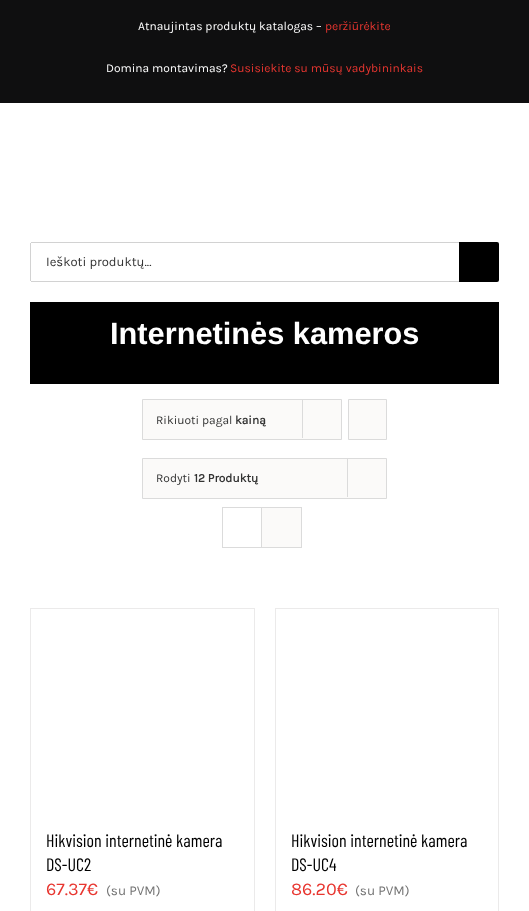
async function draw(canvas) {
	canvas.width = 529;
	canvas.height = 911;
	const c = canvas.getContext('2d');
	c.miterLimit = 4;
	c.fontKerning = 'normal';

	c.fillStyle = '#fff';
	c.fillRect(0, 0, 529, 911);
	c.fillStyle = '#0f0f10';
	c.fillRect(0, 0, 529, 103);
	c.font = '12px Karla';
	c.fillStyle = '#fff';
	c.fillText('Atnaujintas produktų katalogas –', 138, 30);
	c.fillStyle = '#e83630';
	c.fillText('peržiūrėkite', 325, 30);
	c.fillStyle = '#fff';
	c.fillText('Domina montavimas?', 106, 72);
	c.fillStyle = '#e83630';
	c.fillText('Susisiekite su mūsų vadybininkais', 230, 72);
	for (const [x, y, w, h, color] of [
		[31, 242, 428, 1, '#d2d2d2'],
		[31, 281, 428, 1, '#d2d2d2'],
		[30, 243, 1, 38, '#d2d2d2'],
	]) {
		c.fillStyle = color;
		c.fillRect(x, y, w, h);
	}
	c.font = '13px Karla';
	c.fillStyle = '#333';
	c.fillText('Ieškoti produktų...', 46, 266);
	c.fillStyle = '#000';
	c.beginPath();
	c.roundRect(459, 242, 40, 40, [0, 2, 2, 0]);
	c.fill();
	c.fillRect(30, 302, 469, 82);
	c.font = 'bold 30.75px Liberation Sans';
	c.fillStyle = '#fff';
	c.fillText('Internetinės kameros', 110, 344);
	c.fillStyle = '#fbfaf9';
	c.beginPath();
	c.rect(142.5, 399.5, 199, 40);
	c.fill();
	c.strokeStyle = '#dbdbdb';
	c.stroke();
	c.font = '12px Karla';
	c.fillStyle = '#333';
	c.fillText('Rikiuoti pagal', 156, 424);
	c.font = 'bold 12px Karla';
	c.fillText('kainą', 235, 424);
	c.fillStyle = '#dbdbdb';
	c.fillRect(302, 399, 1, 39);
	c.fillStyle = '#fbfaf9';
	c.beginPath();
	c.rect(348.5, 399.5, 38, 40);
	c.fill();
	c.stroke();
	c.beginPath();
	c.rect(142.5, 458.5, 244, 40);
	c.fill();
	c.stroke();
	c.font = '12px Karla';
	c.fillStyle = '#333';
	c.fillText('Rodyti', 156, 482);
	c.font = 'bold 12px Karla';
	c.fillText('12 Produktų', 194, 482);
	c.fillStyle = '#dbdbdb';
	c.fillRect(347, 458, 1, 39);
	c.strokeRect(222.5, 507.5, 79, 40);
	for (const [x, y, w, h, color] of [
		[261, 508, 1, 39, '#dbdbdb'],
		[262, 508, 39, 39, '#fbfaf9'],
		[30, 608, 225, 1, '#ebeaea'],
		[254, 608, 1, 303, '#ebeaea'],
		[30, 608, 1, 303, '#ebeaea'],
	]) {
		c.fillStyle = color;
		c.fillRect(x, y, w, h);
	}
	c.font = '18px Barlow Condensed';
	c.fillStyle = '#000';
	c.fillText('Hikvision internetinė kamera', 46, 847);
	c.fillText('DS-UC2', 46, 871);
	c.font = '18px Karla';
	c.fillStyle = '#e83630';
	c.fillText('67.37€', 46, 895);
	c.font = '13.5px Karla';
	c.fillStyle = '#747474';
	c.fillText('(su PVM)', 106, 895);
	for (const [x, y, w, h, color] of [
		[275, 608, 224, 1, '#ebeaea'],
		[498, 608, 1, 303, '#ebeaea'],
		[275, 608, 1, 303, '#ebeaea'],
	]) {
		c.fillStyle = color;
		c.fillRect(x, y, w, h);
	}
	c.font = '18px Barlow Condensed';
	c.fillStyle = '#000';
	c.fillText('Hikvision internetinė kamera', 291, 847);
	c.fillText('DS-UC4', 291, 871);
	c.font = '18px Karla';
	c.fillStyle = '#e83630';
	c.fillText('86.20€', 291, 895);
	c.font = '13.5px Karla';
	c.fillStyle = '#747474';
	c.fillText('(su PVM)', 355, 895);
}

draw(document.querySelector('canvas'));
